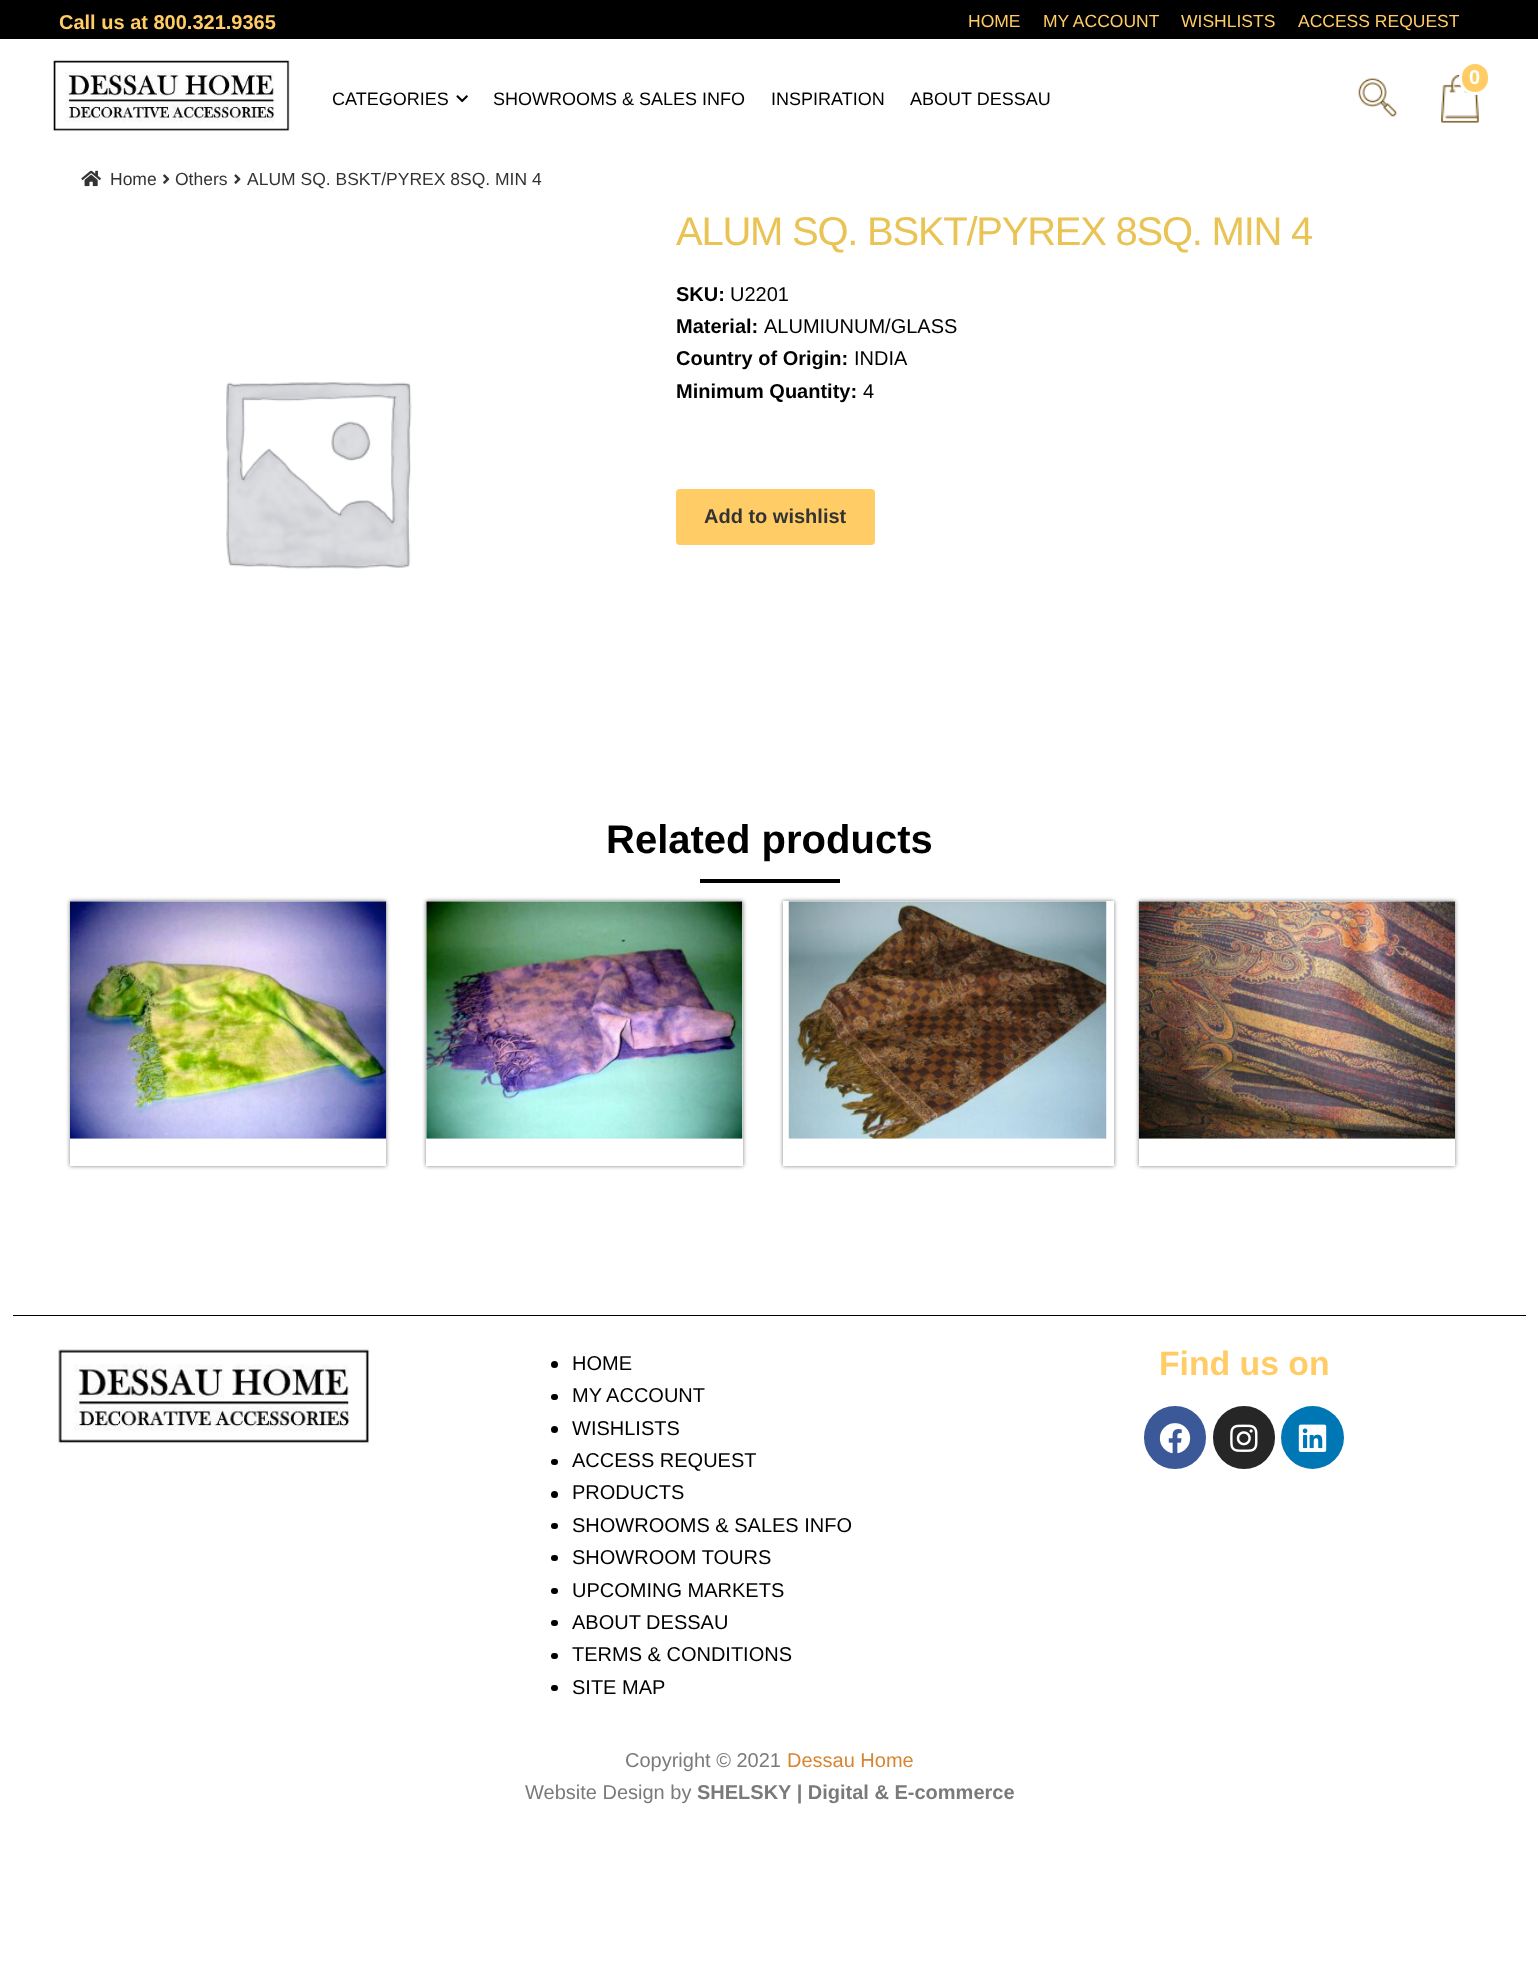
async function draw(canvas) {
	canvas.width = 1538;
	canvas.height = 1977;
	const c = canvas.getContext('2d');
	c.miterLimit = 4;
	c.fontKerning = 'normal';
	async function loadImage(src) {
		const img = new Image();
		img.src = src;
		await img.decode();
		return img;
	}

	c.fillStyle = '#fff';
	c.fillRect(0, 0, 1538, 1977);
	c.fillStyle = '#000';
	c.fillRect(0, 0, 1538, 39);
	c.font = 'bold 20px Liberation Sans';
	c.fillStyle = '#fc6';
	c.fillText('Call us at 800.321.9365', 59, 29);
	c.font = '17.5px Liberation Sans';
	for (const [text, x, y] of [
		['HOME', 968, 27],
		['MY ACCOUNT', 1043, 27],
		['WISHLISTS', 1181, 27],
		['ACCESS REQUEST', 1298, 27],
	]) {
		c.fillText(text, x, y);
	}
	c.drawImage(await loadImage('img1.png'), 53, 60, 237, 72);
	c.font = '18px Liberation Sans';
	c.fillStyle = '#000';
	c.fillText('CATEGORIES', 332, 105);
	c.drawImage(await loadImage('img2.png'), 456, 95, 12, 8);
	for (const [text, x, y] of [
		['SHOWROOMS & SALES INFO', 493, 105],
		['INSPIRATION', 771, 105],
		['ABOUT DESSAU', 910, 105],
	]) {
		c.fillText(text, x, y);
	}
	c.drawImage(await loadImage('img3.png'), 1358, 78, 39, 39);
	c.drawImage(await loadImage('img4.png'), 1441, 75, 38, 48);
	c.fillStyle = '#fc6';
	c.beginPath();
	c.roundRect(1460.5, 62.5, 29, 31, 14.5);
	c.fill();
	c.strokeStyle = '#fff';
	c.lineWidth = 3;
	c.stroke();
	c.font = 'bold 20px Liberation Sans';
	c.fillStyle = '#fff';
	c.fillText('0', 1469, 84);
	c.drawImage(await loadImage('img5.png'), 81, 170, 20, 17);
	c.font = '17.5px Liberation Sans';
	c.fillStyle = '#333';
	c.fillText('Home', 110, 185);
	c.drawImage(await loadImage('img6.png'), 163, 174, 7, 10);
	c.fillText('Others', 175, 185);
	c.drawImage(await loadImage('img7.png'), 234, 174, 7, 10);
	c.fillText('ALUM SQ. BSKT/PYREX 8SQ. MIN 4', 247, 185);
	c.drawImage(await loadImage('img8.png'), 226, 382, 186, 187);
	c.letterSpacing = '-1.25px';
	c.font = '40px Liberation Sans';
	c.fillStyle = '#eac355';
	c.fillText('ALUM SQ. BSKT/PYREX 8SQ. MIN 4', 676, 245);
	c.letterSpacing = '0px';
	c.font = 'bold 20px Liberation Sans';
	c.fillStyle = '#000';
	c.fillText('SKU:', 676, 301);
	c.font = '20px Liberation Sans';
	c.fillText('U2201', 730, 301);
	c.font = 'bold 20px Liberation Sans';
	c.fillText('Material:', 676, 333);
	c.font = '20px Liberation Sans';
	c.fillText('ALUMIUNUM/GLASS', 764, 333);
	c.font = 'bold 20px Liberation Sans';
	c.fillText('Country of Origin:', 676, 365);
	c.font = '20px Liberation Sans';
	c.fillText('INDIA', 854, 365);
	c.font = 'bold 20px Liberation Sans';
	c.fillText('Minimum Quantity:', 676, 398);
	c.font = '20px Liberation Sans';
	c.fillText('4', 863, 398);
	c.fillStyle = '#fc6';
	c.beginPath();
	c.roundRect(676, 489, 199, 56, 4);
	c.fill();
	c.font = 'bold 20px Liberation Sans';
	c.fillStyle = '#333';
	c.fillText('Add to wishlist', 704, 523);
	c.font = 'bold 40px Liberation Sans';
	c.fillStyle = '#000';
	c.fillText('Related products', 606, 853);
	c.fillRect(700, 879, 140, 4);
	c.fillStyle = '#00000080';
	c.filter = 'blur(2px)';
	c.beginPath();
	c.rect(70, 901, 316, 265);
	c.fill();
	c.filter = 'none';
	c.fillStyle = '#fff';
	c.fillRect(70, 901, 316, 265);
	c.drawImage(await loadImage('img9.png'), 70, 901, 317, 238);
	c.fillStyle = '#00000080';
	c.filter = 'blur(2px)';
	c.beginPath();
	c.rect(426, 901, 317, 265);
	c.fill();
	c.filter = 'none';
	c.fillStyle = '#fff';
	c.fillRect(426, 901, 317, 265);
	c.drawImage(await loadImage('img10.png'), 426, 901, 317, 238);
	c.fillStyle = '#00000080';
	c.filter = 'blur(2px)';
	c.beginPath();
	c.rect(783, 901, 331, 265);
	c.fill();
	c.filter = 'none';
	c.fillStyle = '#fff';
	c.fillRect(783, 901, 331, 265);
	c.drawImage(await loadImage('img11.png'), 788, 901, 319, 238);
	c.fillStyle = '#00000080';
	c.filter = 'blur(2px)';
	c.beginPath();
	c.rect(1139, 901, 316, 265);
	c.fill();
	c.filter = 'none';
	c.fillStyle = '#fff';
	c.fillRect(1139, 901, 316, 265);
	c.drawImage(await loadImage('img12.png'), 1138, 901, 317, 238);
	c.fillStyle = '#000';
	c.fillRect(13, 1315, 1513, 1);
	c.drawImage(await loadImage('img13.png'), 57, 1347, 313, 98);
	c.beginPath();
	c.arc(554.5, 1364.5, 3.5, 0, 2 * Math.PI);
	c.fill();
	c.font = '20px Liberation Sans';
	c.fillText('HOME', 572, 1370);
	c.beginPath();
	c.roundRect(551, 1394, 7, 6, 3);
	c.fill();
	c.fillText('MY ACCOUNT', 572, 1402);
	c.beginPath();
	c.arc(554.5, 1429.5, 3.5, 0, 2 * Math.PI);
	c.fill();
	c.fillText('WISHLISTS', 572, 1435);
	c.beginPath();
	c.roundRect(551, 1459, 7, 6, 3);
	c.fill();
	c.fillText('ACCESS REQUEST', 572, 1467);
	c.beginPath();
	c.arc(554.5, 1494.5, 3.5, 0, 2 * Math.PI);
	c.fill();
	c.fillText('PRODUCTS', 572, 1499);
	c.beginPath();
	c.roundRect(551, 1523, 7, 6, 3);
	c.fill();
	c.fillText('SHOWROOMS & SALES INFO', 572, 1532);
	c.beginPath();
	c.roundRect(551, 1555, 7, 6, 3);
	c.fill();
	c.fillText('SHOWROOM TOURS', 572, 1564);
	c.beginPath();
	c.roundRect(551, 1588, 7, 6, 3);
	c.fill();
	c.fillText('UPCOMING MARKETS', 572, 1597);
	c.beginPath();
	c.roundRect(551, 1620, 7, 6, 3);
	c.fill();
	c.fillText('ABOUT DESSAU', 572, 1629);
	c.beginPath();
	c.roundRect(551, 1653, 7, 6, 3);
	c.fill();
	c.fillText('TERMS & CONDITIONS', 572, 1661);
	c.beginPath();
	c.roundRect(551, 1685, 7, 6, 3);
	c.fill();
	c.fillText('SITE MAP', 572, 1694);
	c.font = 'bold 33.75px Liberation Sans';
	c.fillStyle = '#fc6';
	c.fillText('Find us on', 1159, 1375);
	c.fillStyle = '#3b5998';
	c.beginPath();
	c.roundRect(1144, 1406, 62, 63, 31);
	c.fill();
	c.drawImage(await loadImage('img14.png'), 1159, 1423, 32, 31);
	c.fillStyle = '#262626';
	c.beginPath();
	c.roundRect(1213, 1406, 62, 63, 31);
	c.fill();
	c.drawImage(await loadImage('img15.png'), 1230, 1424, 28, 28);
	c.fillStyle = '#0077b5';
	c.beginPath();
	c.arc(1312.5, 1437.5, 31.5, 0, 2 * Math.PI);
	c.fill();
	c.drawImage(await loadImage('img16.png'), 1298, 1424, 29, 28);
	c.font = '20px Liberation Sans';
	c.fillStyle = '#7a7a7a';
	c.fillText('Copyright © 2021', 625, 1767);
	c.fillStyle = '#d88531';
	c.fillText('Dessau Home', 787, 1767);
	c.fillStyle = '#7a7a7a';
	c.fillText('Website Design by', 525, 1799);
	c.font = 'bold 20px Liberation Sans';
	c.fillText('SHELSKY | Digital & E-commerce', 697, 1799);
}

draw(document.querySelector('canvas'));
